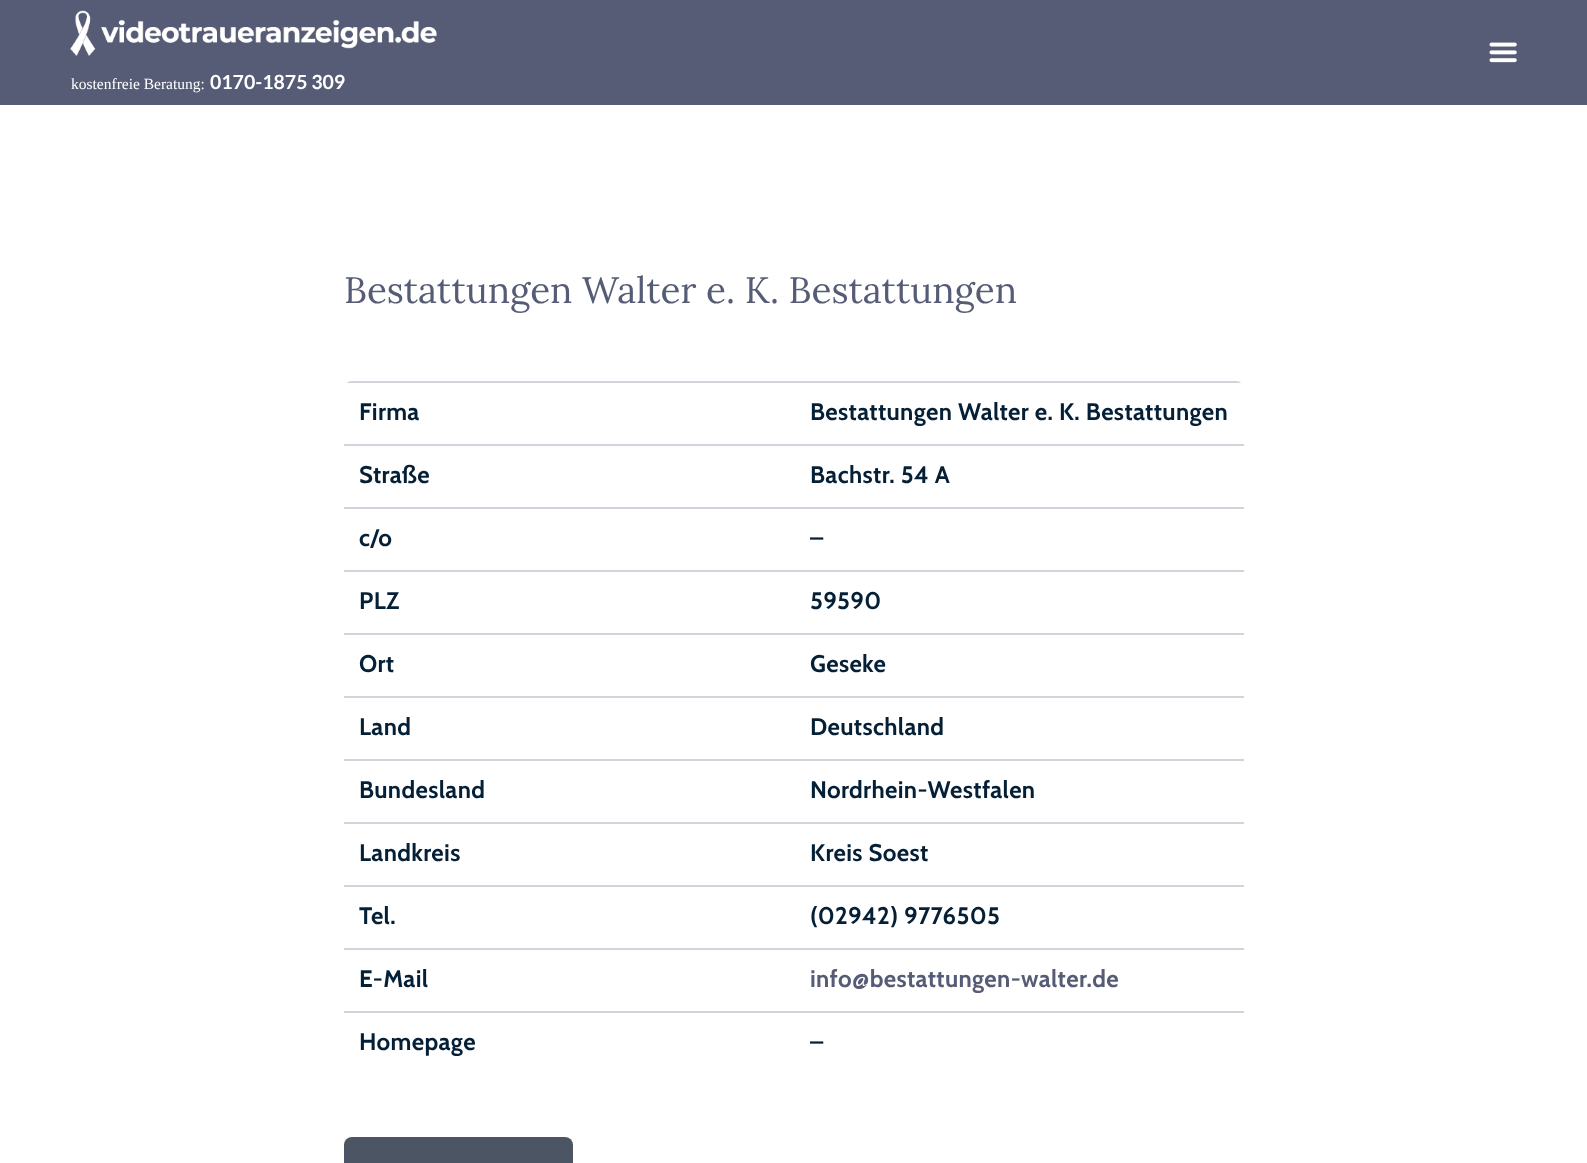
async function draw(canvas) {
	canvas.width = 1587;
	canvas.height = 1163;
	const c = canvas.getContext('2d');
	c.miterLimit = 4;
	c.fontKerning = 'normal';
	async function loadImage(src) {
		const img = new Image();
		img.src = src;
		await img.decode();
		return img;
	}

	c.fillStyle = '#fff';
	c.fillRect(0, 0, 1587, 1163);
	c.fillStyle = '#565c75';
	c.fillRect(0, 0, 1587, 105);
	c.drawImage(await loadImage('img1.png'), 1489, 42, 28, 21);
	c.drawImage(await loadImage('img2.png'), 70, 10, 367, 46);
	c.font = '15.5px Liberation Serif';
	c.fillStyle = '#fff';
	c.fillText('kostenfreie Beratung:', 71, 89);
	c.font = 'bold 19.5px Lato';
	c.fillText('0170-1875 309', 210, 89);
	c.font = '36.8px Lora';
	c.fillStyle = '#565c75';
	c.fillText('Bestattungen Walter e. K. Bestattungen', 344, 303);
	c.save();
	c.beginPath();
	c.roundRect(344, 381, 900, 693, 8);
	c.clip();
	c.fillStyle = '#d1d5db';
	c.fillRect(794, 381, 450, 2);
	c.fillRect(344, 381, 451, 2);
	c.restore();
	c.letterSpacing = '0.35px';
	c.font = 'bold 24px Cabin';
	c.fillStyle = '#052036';
	for (const [text, x, y] of [
		['Firma', 359, 420],
		['Bestattungen Walter e. K. Bestattungen', 810, 420],
		['Straße', 359, 483],
	]) {
		c.fillText(text, x, y);
	}
	c.fillStyle = '#d1d5db';
	c.fillRect(344, 444, 900, 2);
	c.fillStyle = '#052036';
	c.fillText('Bachstr. 54 A', 810, 483);
	c.fillText('c/o', 359, 546);
	c.fillStyle = '#d1d5db';
	c.fillRect(344, 507, 900, 2);
	c.fillStyle = '#052036';
	c.fillText('–', 810, 546);
	c.fillText('PLZ', 359, 609);
	c.fillStyle = '#d1d5db';
	c.fillRect(344, 570, 900, 2);
	c.fillStyle = '#052036';
	c.fillText('59590', 810, 609);
	c.fillText('Ort', 359, 672);
	c.fillStyle = '#d1d5db';
	c.fillRect(344, 633, 900, 2);
	c.fillStyle = '#052036';
	c.fillText('Geseke', 810, 672);
	c.fillText('Land', 359, 735);
	c.fillStyle = '#d1d5db';
	c.fillRect(344, 696, 900, 2);
	c.fillStyle = '#052036';
	c.fillText('Deutschland', 810, 735);
	c.fillText('Bundesland', 359, 798);
	c.fillStyle = '#d1d5db';
	c.fillRect(344, 759, 900, 2);
	c.fillStyle = '#052036';
	c.fillText('Nordrhein-Westfalen', 810, 798);
	c.fillText('Landkreis', 359, 861);
	c.fillStyle = '#d1d5db';
	c.fillRect(344, 822, 900, 2);
	c.fillStyle = '#052036';
	c.fillText('Kreis Soest', 810, 861);
	c.fillText('Tel.', 359, 924);
	c.fillStyle = '#d1d5db';
	c.fillRect(344, 885, 900, 2);
	c.fillStyle = '#052036';
	c.fillText('(02942) 9776505', 810, 924);
	c.fillText('E-Mail', 359, 987);
	c.fillStyle = '#d1d5db';
	c.fillRect(344, 948, 900, 2);
	c.fillStyle = '#565c75';
	c.fillText('info@bestattungen-walter.de', 810, 987);
	c.fillStyle = '#052036';
	c.fillText('Homepage', 359, 1050);
	c.fillStyle = '#d1d5db';
	c.fillRect(344, 1011, 900, 2);
	c.fillStyle = '#052036';
	c.fillText('–', 810, 1050);
	c.fillStyle = '#4b5563';
	c.beginPath();
	c.roundRect(344, 1137, 229, 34, 8);
	c.fill();
}

draw(document.querySelector('canvas'));
